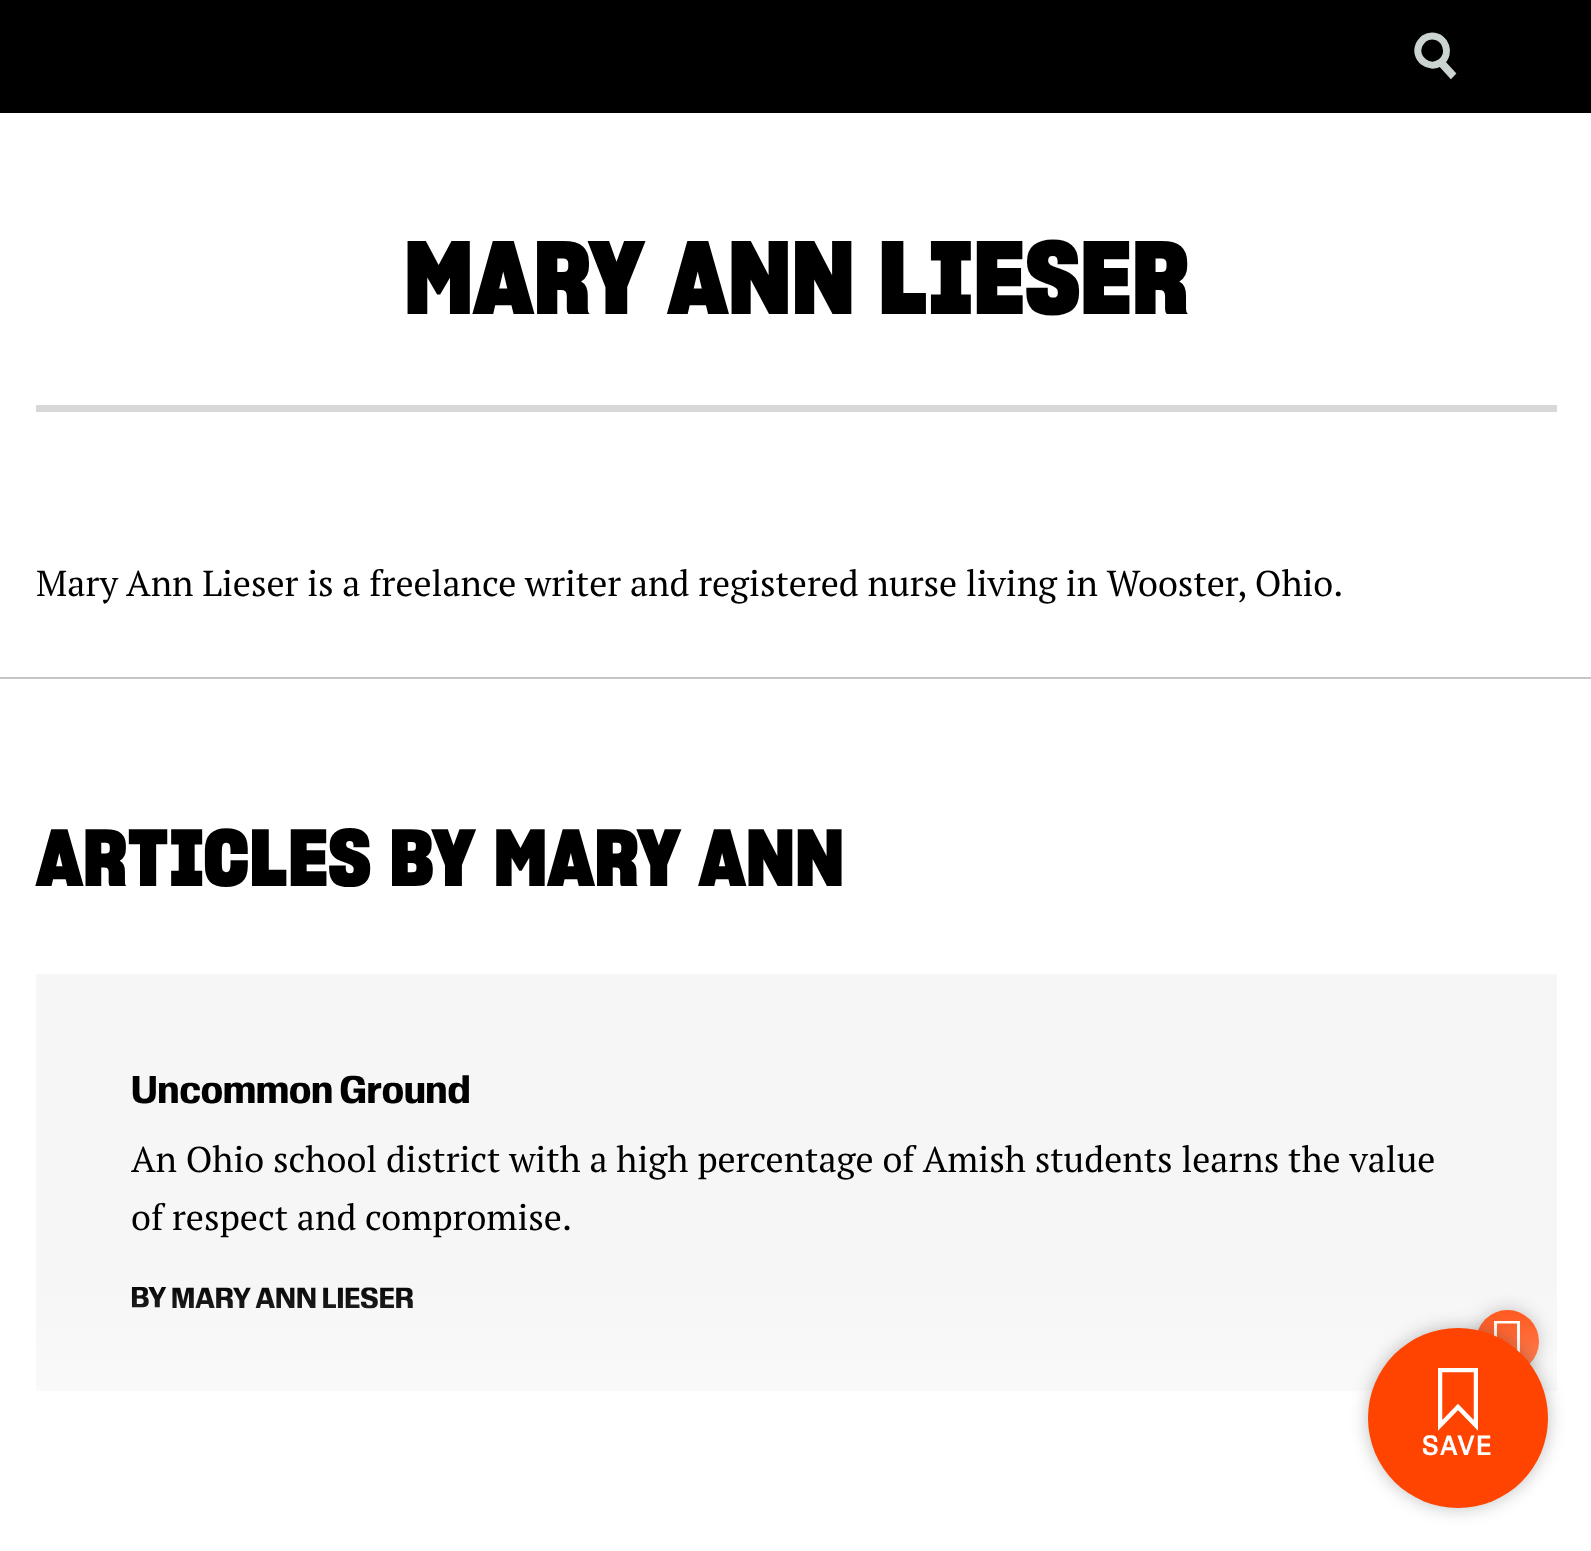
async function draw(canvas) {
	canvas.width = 1591;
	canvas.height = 1551;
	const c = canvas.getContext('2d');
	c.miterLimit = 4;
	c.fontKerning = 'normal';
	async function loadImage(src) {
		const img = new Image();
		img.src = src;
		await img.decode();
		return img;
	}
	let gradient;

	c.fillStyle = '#fff';
	c.fillRect(0, 0, 1591, 1551);
	c.fillStyle = '#000';
	c.fillRect(0, 0, 1591, 113);
	c.beginPath();
	c.moveTo(1441, 62);
	c.bezierCurveTo(1451.5, 54, 1446, 36, 1432, 36);
	c.bezierCurveTo(1429.5, 36, 1426.5, 37, 1424, 38.5);
	c.bezierCurveTo(1422, 40.5, 1420, 42.5, 1419, 45);
	c.bezierCurveTo(1413.5, 58.5, 1429, 70.5, 1440.5, 62.5);
	c.lineTo(1451, 74);
	c.lineTo(1451.5, 73.5);
	c.closePath();
	c.strokeStyle = '#cbd4d1';
	c.lineWidth = 7.1;
	c.stroke();
	c.font = 'bold 101.25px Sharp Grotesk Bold';
	c.fillText('MARY ANN LIESER', 404, 314);
	c.fillStyle = '#d8d8d8';
	c.fillRect(36, 405, 1521, 7);
	c.font = '36px PT Serif';
	c.fillStyle = '#000';
	c.fillText('Mary Ann Lieser is a freelance writer and registered nurse living in Wooster, Ohio.', 36, 596);
	c.fillStyle = '#f6f6f6';
	c.fillRect(36, 974, 1521, 417);
	c.drawImage(await loadImage('img1.png'), 131, 1287, 36, 21);
	c.font = 'bold 27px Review';
	c.fillStyle = '#000';
	c.fillText('MARY ANN LIESER', 171, 1308);
	c.fillStyle = '#00000040';
	c.filter = 'blur(9px)';
	c.beginPath();
	c.roundRect(1476, 1310, 63, 63, 31.5);
	c.fill();
	c.filter = 'none';
	c.fillStyle = '#ff4301';
	c.beginPath();
	c.arc(1507.5, 1341.5, 31.5, 0, 2 * Math.PI);
	c.fill();
	c.save();
	c.beginPath();
	c.rect(1494, 1321, 27, 40);
	c.clip();
	c.beginPath();
	c.moveTo(1495.5, 1357.5);
	c.lineTo(1495.5, 1322);
	c.lineTo(1518.5, 1322);
	c.lineTo(1518.5, 1357.5);
	c.lineTo(1507, 1345.5);
	c.closePath();
	c.strokeStyle = '#fff';
	c.lineWidth = 2.9;
	c.stroke();
	c.restore();
	gradient = c.createLinearGradient(797, 1278, 797, 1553);
	gradient.addColorStop(0, '#ffffff00');
	gradient.addColorStop(1, '#fff');
	c.fillStyle = gradient;
	c.fillRect(36, 1287, 1521, 104);
	c.fillStyle = '#00000040';
	c.filter = 'blur(9px)';
	c.beginPath();
	c.roundRect(1368, 1328, 180, 180, 90);
	c.fill();
	c.filter = 'none';
	c.fillStyle = '#ff4301';
	c.beginPath();
	c.arc(1458, 1418, 90, 0, 2 * Math.PI);
	c.fill();
	c.save();
	c.beginPath();
	c.rect(1438, 1368, 40, 63);
	c.clip();
	c.beginPath();
	c.moveTo(1440, 1425.5);
	c.lineTo(1440, 1370);
	c.lineTo(1476, 1370);
	c.lineTo(1476, 1425.5);
	c.lineTo(1458, 1407);
	c.closePath();
	c.strokeStyle = '#fff';
	c.lineWidth = 4.5;
	c.stroke();
	c.restore();
	c.letterSpacing = '2px';
	c.font = 'bold 25px "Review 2"';
	c.fillStyle = '#fff';
	c.fillText('SAVE', 1422, 1455);
	c.fillStyle = '#c6c6c6';
	c.fillRect(0, 677, 1591, 2);
	c.letterSpacing = '0px';
	c.font = 'bold 78.75px Sharp Grotesk Bold';
	c.fillStyle = '#000';
	c.fillText('ARTICLES BY MARY ANN', 36, 886);
	c.font = 'bold 36px Review';
	c.fillText('Uncommon Ground', 131, 1103);
	c.font = '36px PT Serif';
	c.fillText('An Ohio school district with a high percentage of Amish students learns the value', 131, 1172);
	c.fillText('of respect and compromise.', 131, 1230);
}

draw(document.querySelector('canvas'));
